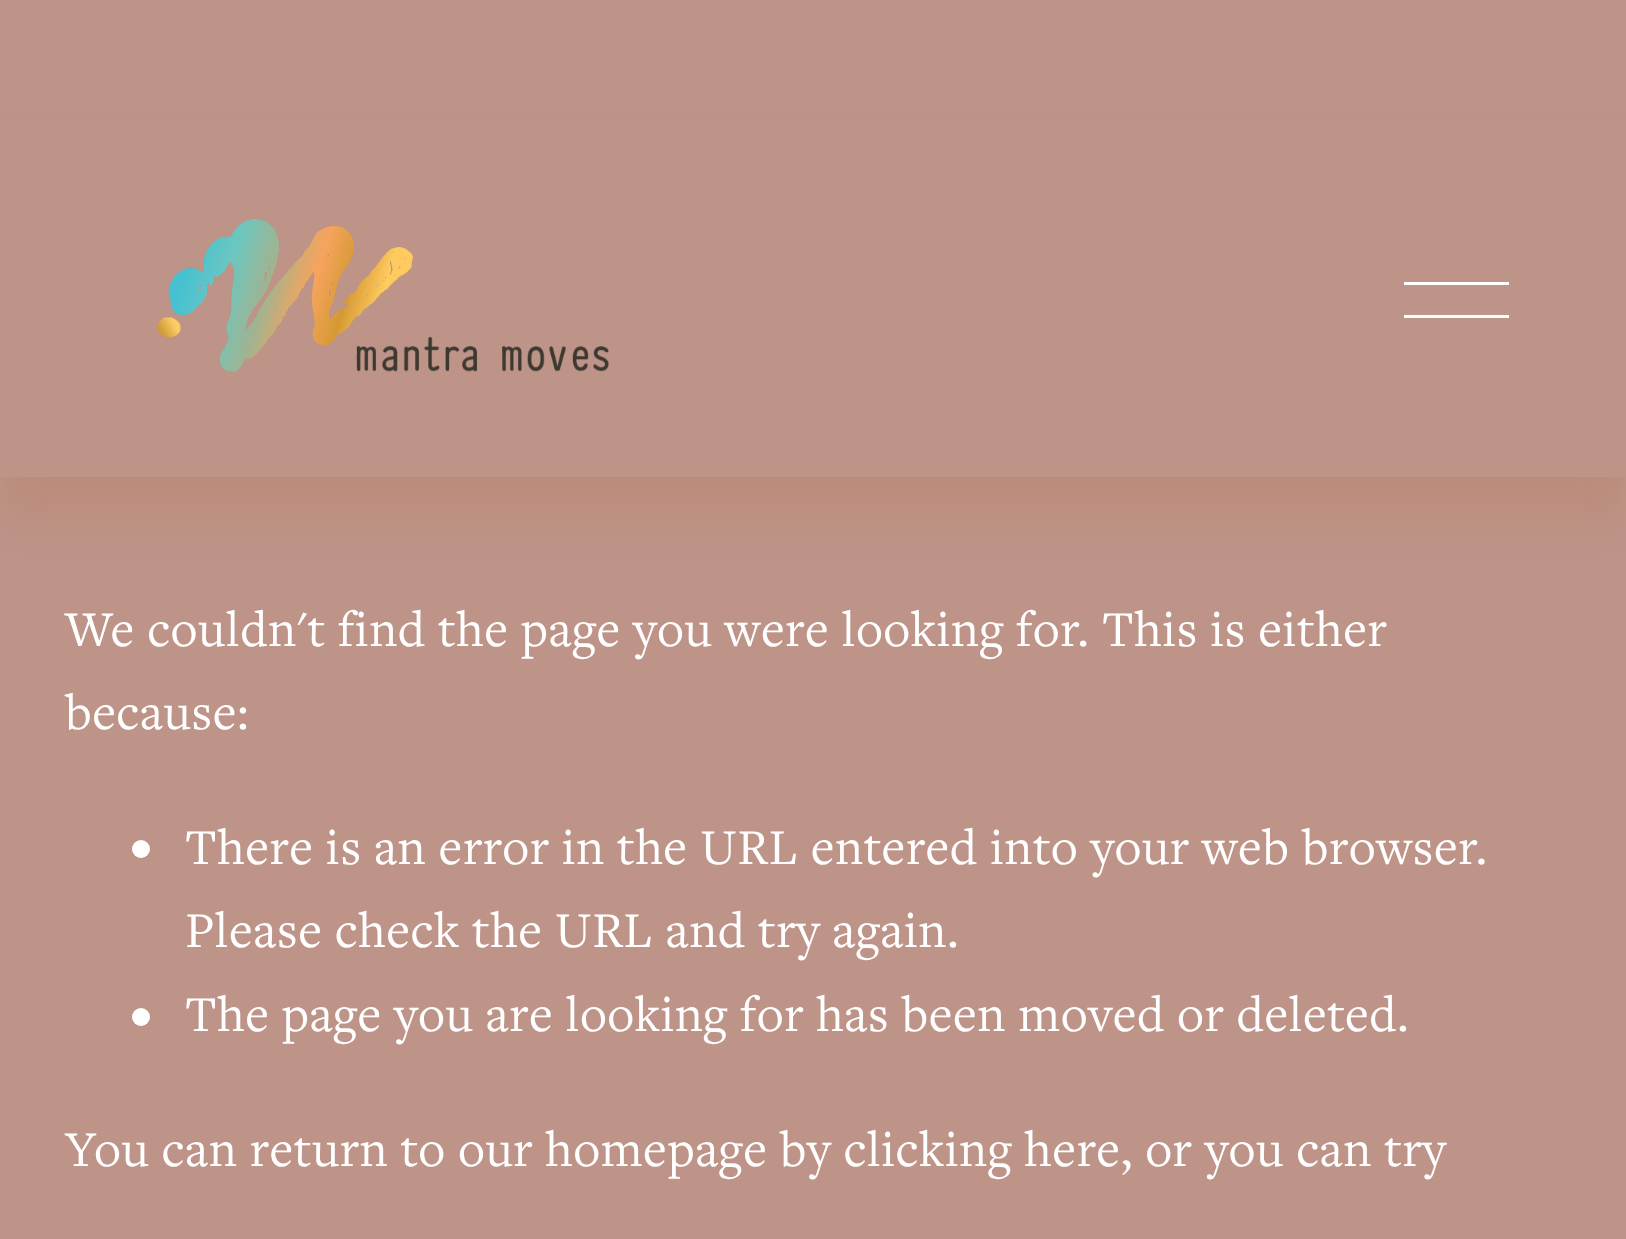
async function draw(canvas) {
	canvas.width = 1626;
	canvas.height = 1239;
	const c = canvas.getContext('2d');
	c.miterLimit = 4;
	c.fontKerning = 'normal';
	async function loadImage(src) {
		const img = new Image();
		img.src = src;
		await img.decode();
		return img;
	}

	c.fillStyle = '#be9388';
	c.fillRect(0, 0, 1626, 1239);
	c.save();
	c.beginPath();
	c.moveTo(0, 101);
	c.lineTo(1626, 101);
	c.lineTo(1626, 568);
	c.lineTo(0, 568);
	c.closePath();
	c.moveTo(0, 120);
	c.lineTo(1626, 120);
	c.lineTo(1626, 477);
	c.lineTo(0, 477);
	c.closePath();
	c.clip('evenodd');
	c.fillStyle = '#bb8c7a';
	c.filter = 'blur(18px)';
	c.beginPath();
	c.rect(0, 156, 1626, 357);
	c.fill();
	c.filter = 'none';
	c.restore();
	c.drawImage(await loadImage('img1.png'), 157, 219, 452, 155);
	c.fillStyle = '#fff';
	c.fillRect(1404, 282, 105, 3);
	c.fillRect(1404, 315, 105, 3);
	c.letterSpacing = '0.52px';
	c.font = '51.9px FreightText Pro';
	c.fillText('We couldn\'t find the page you were looking for. This is either', 65, 646);
	c.fillText('because:', 65, 729);
	c.beginPath();
	c.arc(141, 849, 9, 0, 2 * Math.PI);
	c.fill();
	c.fillText('There is an error in the URL entered into your web browser.', 185, 864);
	c.fillText('Please check the URL and try again.', 185, 947);
	c.beginPath();
	c.arc(141, 1017, 9, 0, 2 * Math.PI);
	c.fill();
	c.fillText('The page you are looking for has been moved or deleted.', 185, 1031);
	c.fillText('You can return to our homepage by clicking here, or you can try', 65, 1166);
}

draw(document.querySelector('canvas'));
